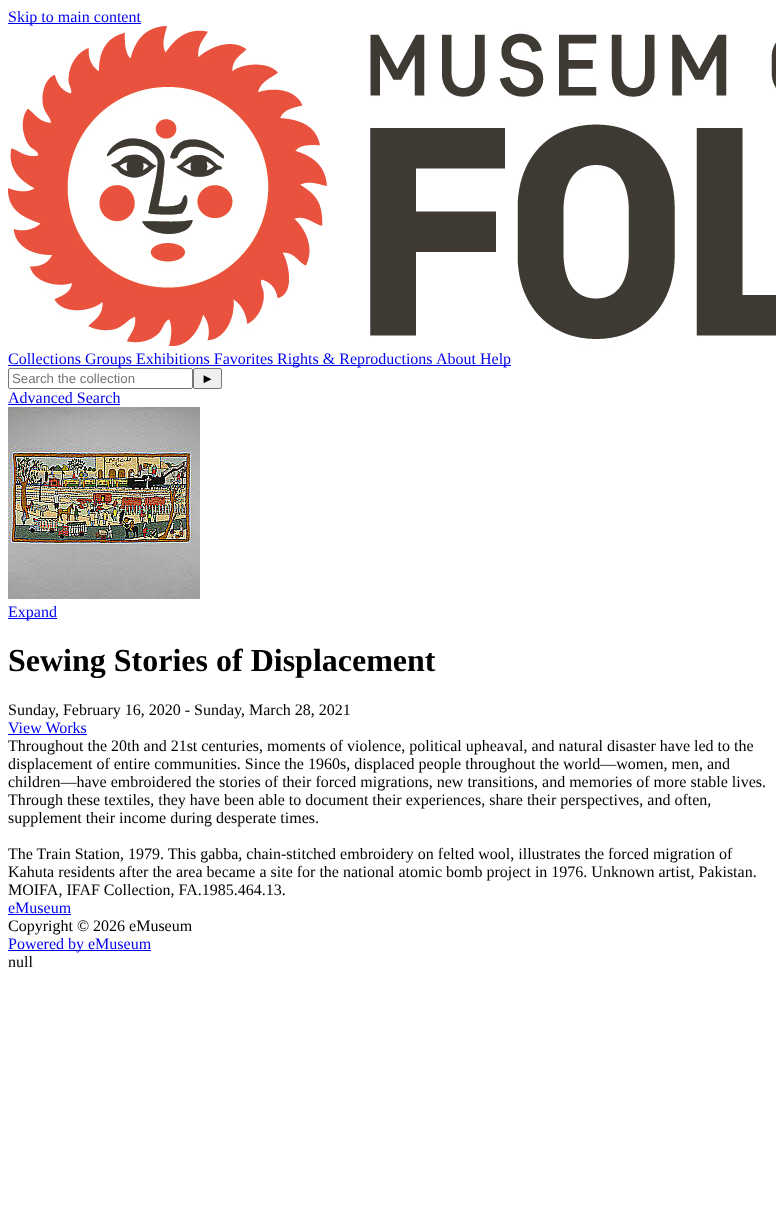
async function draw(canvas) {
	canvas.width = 776;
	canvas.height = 1231;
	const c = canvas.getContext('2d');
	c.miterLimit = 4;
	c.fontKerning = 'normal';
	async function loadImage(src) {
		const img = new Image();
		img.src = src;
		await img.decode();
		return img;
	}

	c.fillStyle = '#fff';
	c.fillRect(0, 0, 776, 1231);
	c.fillStyle = '#00e';
	c.fillRect(8, 23, 133, 1);
	c.font = '16px Liberation Serif';
	c.fillText('Skip to main content', 8, 22);
	c.drawImage(await loadImage('img1.png'), 8, 26, 768, 320);
	c.fillRect(8, 365, 503, 1);
	for (const [text, x, y] of [
		['Collections Groups Exhibitions Favorites', 8, 364],
		['Rights & Reproductions', 277, 364],
		['About Help', 436, 364],
	]) {
		c.fillText(text, x, y);
	}
	c.beginPath();
	c.roundRect(8.5, 368.5, 184, 20, 1.5);
	c.strokeStyle = '#767676';
	c.stroke();
	c.font = '13.25px Liberation Sans';
	c.fillStyle = '#757575';
	c.fillText('Search the collection', 12, 383);
	c.fillStyle = '#efefef';
	c.beginPath();
	c.roundRect(193.5, 368.5, 28, 20, 1.5);
	c.fill();
	c.stroke();
	c.fillStyle = '#000';
	c.fillText('►', 201, 383);
	c.font = '16px Liberation Serif';
	c.fillStyle = '#00e';
	c.fillText('Advanced Search', 8, 403);
	c.fillRect(8, 404, 112, 1);
	c.drawImage(await loadImage('img2.png'), 8, 407, 192, 192);
	c.fillRect(8, 618, 49, 1);
	c.fillText('Expand', 8, 617);
	c.font = 'bold 32px Liberation Serif';
	c.fillStyle = '#000';
	c.fillText('Sewing Stories of Displacement', 8, 671);
	c.font = '16px Liberation Serif';
	c.fillText('Sunday, February 16, 2020 - Sunday, March 28, 2021', 8, 715);
	c.fillStyle = '#00e';
	c.fillText('View Works', 8, 733);
	c.fillRect(8, 734, 79, 1);
	c.fillStyle = '#000';
	for (const [text, x, y] of [
		['Throughout the 20th and 21st centuries, moments of violence, political upheaval, and natural disaster have led to the', 8, 751],
		['displacement of entire communities. Since the 1960s, displaced people throughout the world—women, men, and', 8, 769],
		['children—have embroidered the stories of their forced migrations, new transitions, and memories of more stable lives.', 8, 787],
		['Through these textiles, they have been able to document their experiences, share their perspectives, and often,', 8, 805],
		['supplement their income during desperate times.', 8, 823],
		['The Train Station, 1979. This gabba, chain-stitched embroidery on felted wool, illustrates the forced migration of', 8, 859],
		['Kahuta residents after the area became a site for the national atomic bomb project in 1976. Unknown artist, Pakistan.', 8, 877],
		['MOIFA, IFAF Collection, FA.1985.464.13.', 8, 895],
	]) {
		c.fillText(text, x, y);
	}
	c.fillStyle = '#00e';
	c.fillText('eMuseum', 8, 913);
	c.fillRect(8, 914, 63, 1);
	c.fillStyle = '#000';
	c.fillText('Copyright © 2026 eMuseum', 8, 931);
	c.fillStyle = '#00e';
	c.fillRect(8, 950, 143, 1);
	c.fillText('Powered by eMuseum', 8, 949);
	c.fillStyle = '#000';
	c.fillText('null', 8, 967);
}

draw(document.querySelector('canvas'));
